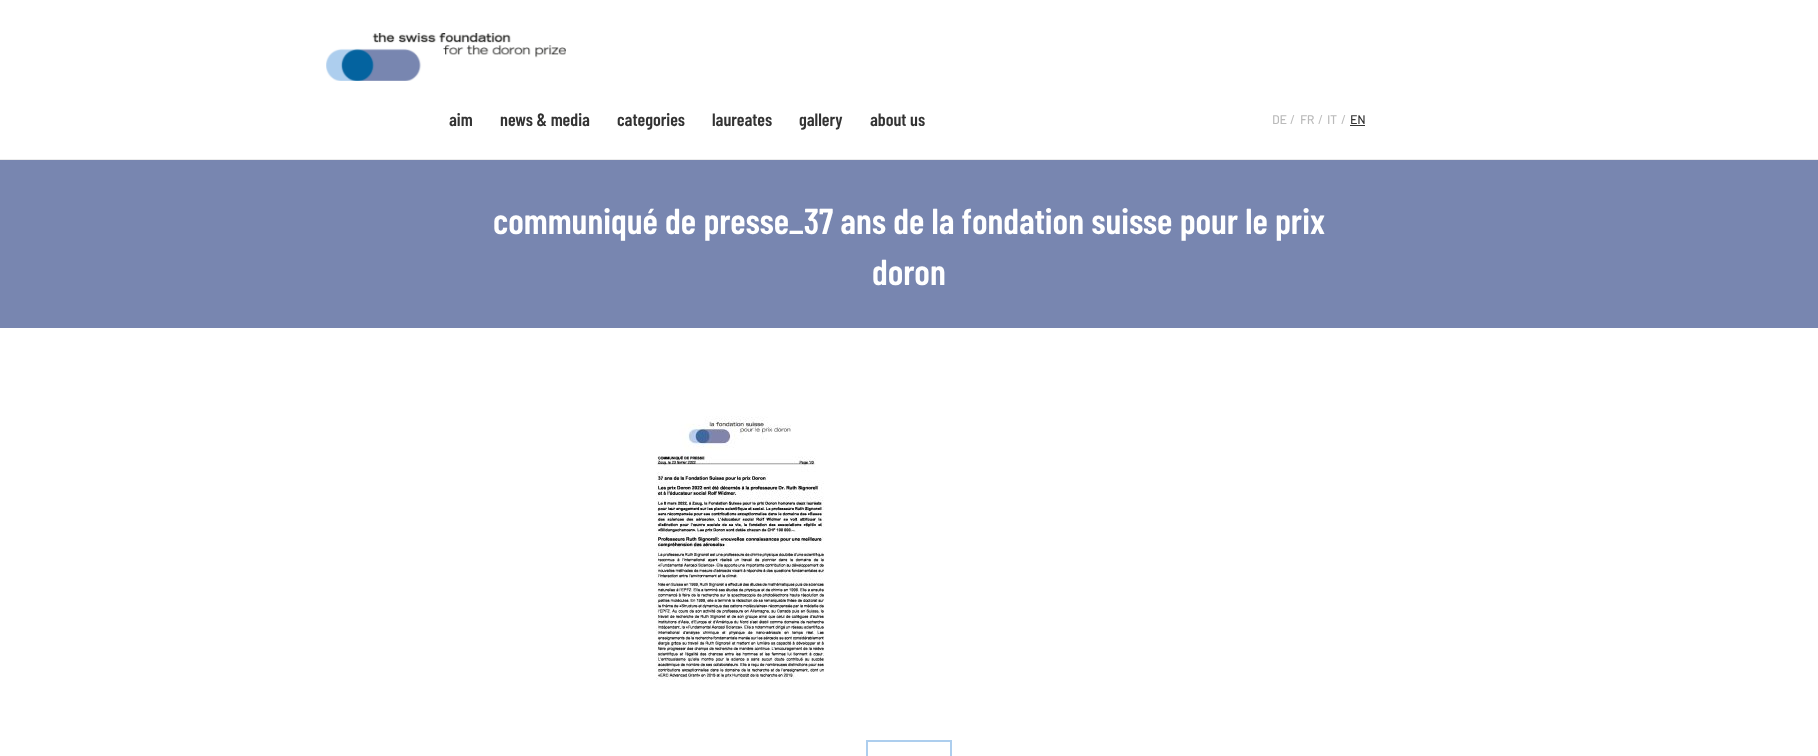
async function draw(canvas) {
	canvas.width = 1818;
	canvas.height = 756;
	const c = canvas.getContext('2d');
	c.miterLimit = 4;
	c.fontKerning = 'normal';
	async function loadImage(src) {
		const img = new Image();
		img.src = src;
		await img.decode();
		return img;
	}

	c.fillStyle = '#fff';
	c.fillRect(0, 0, 1818, 756);
	c.fillStyle = '#ececec';
	c.fillRect(0, 159, 1818, 1);
	c.drawImage(await loadImage('img1.png'), 326, 33, 240, 48);
	c.font = '600 18px Barlow Condensed';
	c.fillStyle = '#333';
	for (const [text, x, y] of [
		['aim', 449, 126],
		['news & media', 500, 126],
		['categories', 617, 126],
		['laureates', 712, 126],
		['gallery', 799, 126],
		['about us', 870, 126],
	]) {
		c.fillText(text, x, y);
	}
	c.font = 'bold 12px Barlow';
	c.fillStyle = '#bababa';
	c.fillText('DE', 1272, 124);
	c.font = '13px Barlow';
	c.fillText('/', 1290, 124);
	c.font = 'bold 12px Barlow';
	c.fillText('FR', 1300, 124);
	c.font = '13px Barlow';
	c.fillText('/', 1318, 124);
	c.font = 'bold 12px Barlow';
	c.fillText('IT', 1327, 124);
	c.font = '13px Barlow';
	c.fillText('/', 1341, 124);
	c.font = 'bold 12px Barlow';
	c.fillStyle = '#333';
	c.fillText('EN', 1350, 124);
	c.fillRect(1350, 125, 15, 1);
	c.fillStyle = '#7886b0';
	c.fillRect(0, 160, 1818, 168);
	c.font = '600 36px Barlow Condensed';
	c.fillStyle = '#fff';
	c.fillText('communiqué de presse_37 ans de la fondation suisse pour le prix', 493, 234);
	c.fillText('doron', 872, 285);
	c.drawImage(await loadImage('img2.png'), 656, 416, 168, 264);
	c.strokeStyle = '#adceee';
	c.lineWidth = 2;
	c.strokeRect(867, 741, 84, 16);
}

draw(document.querySelector('canvas'));
